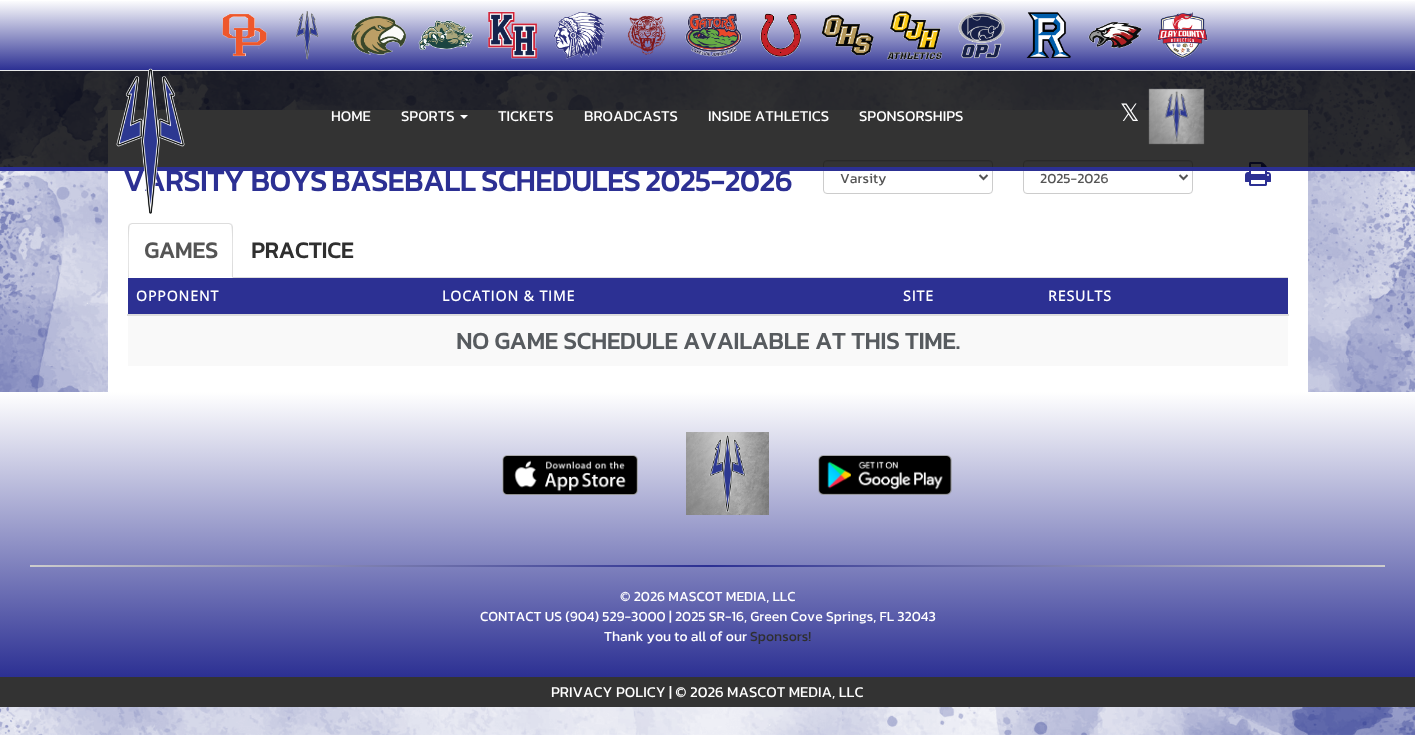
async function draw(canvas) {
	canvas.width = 1415;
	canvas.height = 735;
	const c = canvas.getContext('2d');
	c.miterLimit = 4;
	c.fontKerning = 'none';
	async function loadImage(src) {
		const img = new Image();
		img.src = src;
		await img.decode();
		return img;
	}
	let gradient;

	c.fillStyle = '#fff';
	c.fillRect(0, 0, 1415, 735);
	c.drawImage(await loadImage('img1.png'), 0, 71, 1415, 664);
	c.drawImage(await loadImage('img2.png'), 0, 734, 1415, 1);
	c.fillRect(108, 110, 1200, 282);
	c.fillStyle = '#ececec';
	c.beginPath();
	c.moveTo(827, 162);
	c.lineTo(989, 162);
	c.bezierCurveTo(991, 162, 992, 163, 992, 165);
	c.lineTo(992, 164);
	c.bezierCurveTo(992, 162, 991, 161, 989, 161);
	c.lineTo(827, 161);
	c.bezierCurveTo(825, 161, 824, 162, 824, 164);
	c.lineTo(824, 165);
	c.bezierCurveTo(824, 163, 825, 162, 827, 162);
	c.closePath();
	c.fill();
	c.beginPath();
	c.roundRect(823.5, 160.5, 169, 33, 3.5);
	c.strokeStyle = '#ccc';
	c.stroke();
	c.beginPath();
	c.moveTo(1027, 162);
	c.lineTo(1189, 162);
	c.bezierCurveTo(1191, 162, 1192, 163, 1192, 165);
	c.lineTo(1192, 164);
	c.bezierCurveTo(1192, 162, 1191, 161, 1189, 161);
	c.lineTo(1027, 161);
	c.bezierCurveTo(1025, 161, 1024, 162, 1024, 164);
	c.lineTo(1024, 165);
	c.bezierCurveTo(1024, 163, 1025, 162, 1027, 162);
	c.closePath();
	c.fill();
	c.beginPath();
	c.roundRect(1023.5, 160.5, 169, 33, 3.5);
	c.stroke();
	c.drawImage(await loadImage('img20.png'), 1245, 162, 26, 24);
	c.fillStyle = '#000000cc';
	c.fillRect(0, 71, 1415, 96);
	c.fillStyle = '#2c3093';
	c.fillRect(0, 167, 1415, 4);
	gradient = c.createLinearGradient(708, 0, 708, 70);
	gradient.addColorStop(0, '#fff');
	gradient.addColorStop(1, '#2c3093');
	c.fillStyle = gradient;
	c.fillRect(0, 1, 1415, 69);
	c.fillStyle = '#e6e7e8';
	c.fillRect(0, 70, 1415, 1);
	c.drawImage(await loadImage('img3.png'), 222, 13, 45, 44);
	c.drawImage(await loadImage('img4.png'), 295, 11, 24, 49);
	c.drawImage(await loadImage('img5.png'), 351, 15, 56, 40);
	c.drawImage(await loadImage('img6.png'), 418, 20, 55, 31);
	c.drawImage(await loadImage('img7.png'), 487, 11, 51, 48);
	c.drawImage(await loadImage('img8.png'), 553, 12, 53, 47);
	c.drawImage(await loadImage('img9.png'), 627, 15, 39, 40);
	c.drawImage(await loadImage('img10.png'), 685, 13, 57, 44);
	c.drawImage(await loadImage('img11.png'), 760, 13, 41, 44);
	c.drawImage(await loadImage('img12.png'), 821, 15, 53, 41);
	c.drawImage(await loadImage('img13.png'), 887, 11, 56, 49);
	c.drawImage(await loadImage('img14.png'), 958, 12, 47, 47);
	c.drawImage(await loadImage('img15.png'), 1026, 12, 45, 47);
	c.drawImage(await loadImage('img16.png'), 1088, 21, 54, 28);
	c.drawImage(await loadImage('img17.png'), 1157, 12, 51, 47);
	c.font = 'bold 30px Kanit';
	c.fillStyle = '#2c3093';
	c.fillText('VARSITY BOYS', 123, 191);
	c.drawImage(await loadImage('img18.png'), 116, 68, 69, 146);
	c.font = '15px Kanit';
	c.fillStyle = '#fff';
	c.fillText('HOME', 331, 121);
	c.fillText('SPORTS', 401, 121);
	c.beginPath();
	c.moveTo(460, 115);
	c.lineTo(468, 115);
	c.lineTo(464, 119);
	c.closePath();
	c.fill();
	for (const [text, x, y] of [
		['TICKETS', 498, 121],
		['BROADCASTS', 584, 121],
		['INSIDE ATHLETICS', 708, 121],
		['SPONSORSHIPS', 859, 121],
	]) {
		c.fillText(text, x, y);
	}
	c.font = '24px DejaVu Sans';
	c.fillText('𝕏', 1120, 121);
	c.drawImage(await loadImage('img19.png'), 1148, 88, 57, 57);
	c.font = 'bold 30px Kanit';
	c.fillStyle = '#2c3093';
	for (const [text, x, y] of [
		['BASEBALL', 331, 191],
		['SCHEDULES', 481, 191],
		['2025-2026', 645, 191],
	]) {
		c.fillText(text, x, y);
	}
	c.beginPath();
	c.moveTo(979.5, 175);
	c.lineTo(983.5, 179);
	c.lineTo(987.5, 175);
	c.strokeStyle = '#555';
	c.lineWidth = 2;
	c.stroke();
	c.font = '14px Kanit';
	c.fillStyle = '#555';
	c.fillText('Varsity', 840, 183);
	c.beginPath();
	c.moveTo(1179.5, 175);
	c.lineTo(1183.5, 179);
	c.lineTo(1187.5, 175);
	c.stroke();
	c.fillText('2025-2026', 1040, 183);
	c.fillStyle = '#ddd';
	c.fillRect(233, 277, 1055, 1);
	c.beginPath();
	c.moveTo(132, 223);
	c.lineTo(129, 224);
	c.lineTo(130, 225);
	c.lineTo(132, 224);
	c.lineTo(229, 224);
	c.lineTo(231, 225);
	c.lineTo(232, 224);
	c.lineTo(229, 223);
	c.closePath();
	c.fill();
	c.beginPath();
	c.moveTo(233, 278);
	c.lineTo(233, 227);
	c.lineTo(232, 224);
	c.lineTo(231, 225);
	c.bezierCurveTo(233, 227, 232, 271, 232, 277);
	c.closePath();
	c.fill();
	c.beginPath();
	c.moveTo(128, 278);
	c.lineTo(129, 277);
	c.bezierCurveTo(129, 271, 128, 227, 130, 225);
	c.lineTo(129, 224);
	c.lineTo(128, 227);
	c.closePath();
	c.fill();
	c.font = 'bold 23px Kanit';
	c.fillStyle = '#555';
	c.fillText('GAMES', 144, 258);
	c.fillStyle = '#2f2f2f';
	c.fillText('PRACTICE', 251, 258);
	c.fillStyle = '#2c3093';
	c.fillRect(128, 278, 1160, 36);
	c.letterSpacing = '1px';
	c.font = 'bold 14px Open Sans';
	c.fillStyle = '#fff';
	for (const [text, x, y] of [
		['OPPONENT', 136, 301],
		['LOCATION & TIME', 442, 301],
		['SITE', 903, 301],
	]) {
		c.fillText(text, x, y);
	}
	c.fillStyle = '#ddd';
	c.fillRect(127, 314, 1162, 2);
	c.fillStyle = '#fff';
	c.fillText('RESULTS', 1048, 301);
	c.fillStyle = '#f9f9f9';
	c.fillRect(128, 316, 1160, 50);
	c.letterSpacing = '0px';
	c.font = 'bold 24px Kanit';
	c.fillStyle = '#575b5f';
	c.fillText('NO GAME SCHEDULE AVAILABLE', 456, 349);
	c.fillText('AT THIS TIME.', 815, 349);
	gradient = c.createLinearGradient(708, 392, 708, 677);
	gradient.addColorStop(0, '#fff');
	gradient.addColorStop(1, '#2c3093');
	c.fillStyle = gradient;
	c.fillRect(0, 392, 1415, 285);
	c.drawImage(await loadImage('img21.png'), 686, 432, 83, 83);
	c.drawImage(await loadImage('img22.png'), 502, 455, 136, 40);
	c.drawImage(await loadImage('img23.png'), 818, 455, 134, 40);
	gradient = c.createLinearGradient(30, 566, 1385, 566);
	gradient.addColorStop(0, '#ccc');
	gradient.addColorStop(0.5, '#2c3093');
	gradient.addColorStop(1, '#ccc');
	c.fillStyle = gradient;
	c.fillRect(30, 565, 1355, 2);
	c.font = '14px Kanit';
	c.fillStyle = '#fff';
	for (const [text, x, y] of [
		['© 2026 MASCOT MEDIA, LLC', 620, 601],
		['CONTACT US (904) 529-3000 | 2025 SR-16, Green Cove', 480, 621],
		['Springs, FL 32043', 826, 621],
		['Thank you to all of our', 604, 641],
	]) {
		c.fillText(text, x, y);
	}
	c.fillStyle = '#2f2f2f';
	c.fillText('Sponsors!', 750, 641);
	c.fillStyle = '#333';
	c.fillRect(0, 677, 1415, 30);
	c.font = '15px Kanit';
	c.fillStyle = '#fff';
	c.fillText('PRIVACY', 551, 697);
	c.fillText('POLICY | © 2026 MASCOT MEDIA, LLC', 616, 697);
}

draw(document.querySelector('canvas'));
